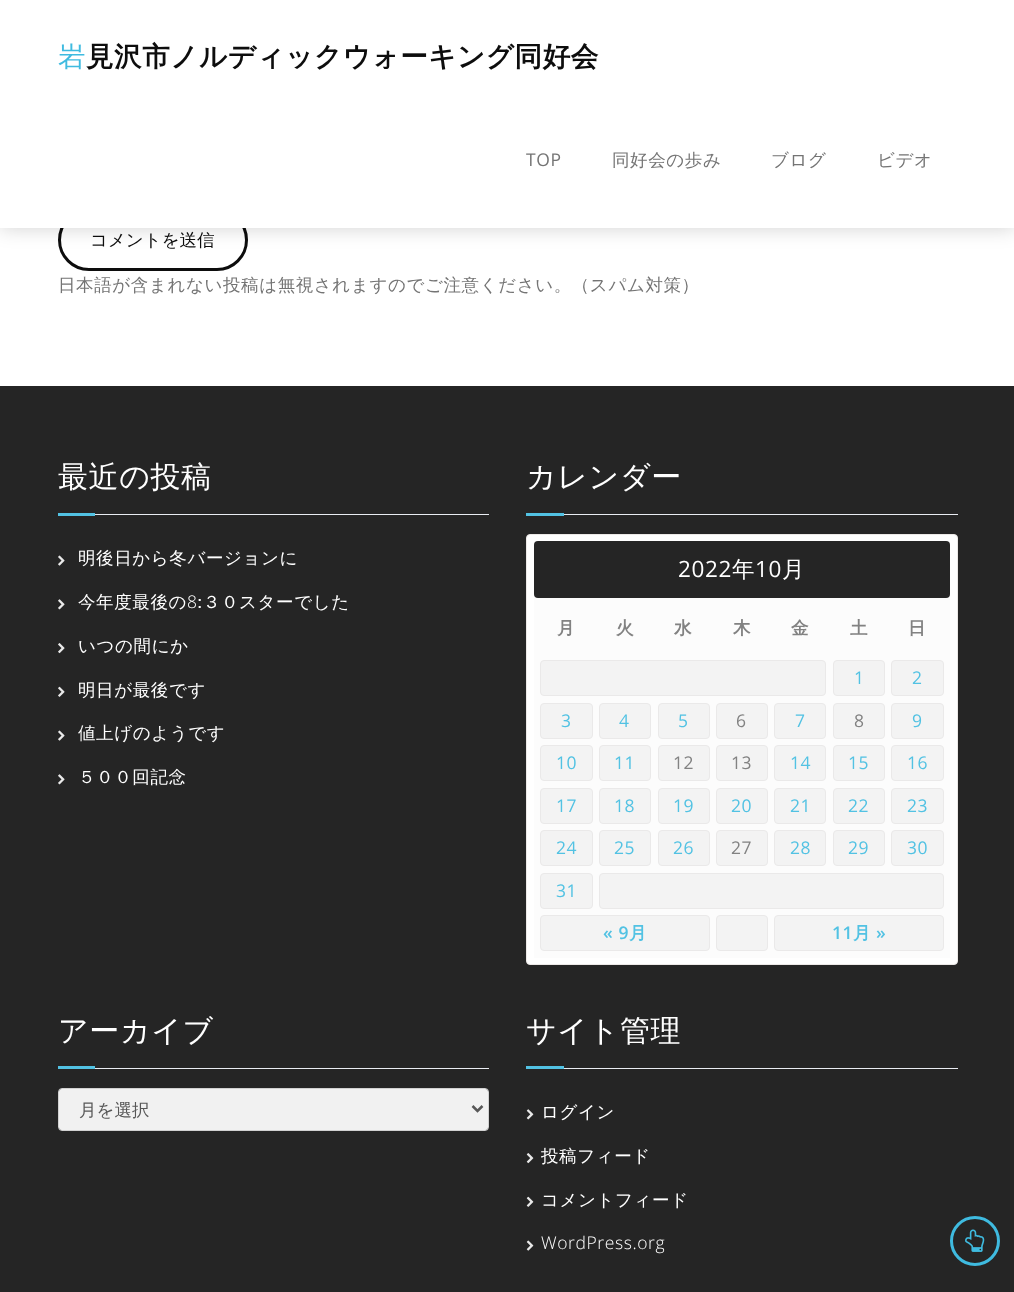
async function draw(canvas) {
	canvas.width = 1014;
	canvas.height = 1292;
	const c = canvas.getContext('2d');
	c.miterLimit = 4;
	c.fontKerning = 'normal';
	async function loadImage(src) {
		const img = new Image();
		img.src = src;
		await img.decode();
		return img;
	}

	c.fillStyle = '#fff';
	c.fillRect(0, 0, 1014, 1292);
	c.beginPath();
	c.roundRect(59.5, 210.5, 187, 59, 29.5);
	c.strokeStyle = '#0d0d0d';
	c.lineWidth = 3;
	c.stroke();
	c.fillStyle = '#0000002e';
	c.filter = 'blur(10px)';
	c.beginPath();
	c.rect(0, 0, 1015, 228);
	c.fill();
	c.filter = 'none';
	c.fillStyle = '#fff';
	c.fillRect(0, 0, 1014, 228);
	c.letterSpacing = '0.6px';
	c.font = '100 27.5px Noto Sans';
	c.fillStyle = '#3fbbe0';
	c.fillText('岩', 58, 66);
	c.font = 'bold 27.5px WenQuanYi Zen Hei';
	c.fillStyle = '#0d0d0d';
	c.fillText('見沢市ノルディックウォーキング同好会', 86, 66);
	c.font = '17.5px Open Sans';
	c.fillStyle = '#747474';
	c.fillText('TOP', 526, 166);
	c.font = '500 17.5px WenQuanYi Zen Hei';
	for (const [text, x, y] of [
		['同好会の歩み', 612, 166],
		['ブログ', 771, 166],
		['ビデオ', 877, 166],
	]) {
		c.fillText(text, x, y);
	}
	c.letterSpacing = '0px';
	c.fillStyle = '#0d0d0d';
	c.fillText('コメントを送信', 90, 246);
	c.letterSpacing = '0.6px';
	c.fillStyle = '#747474';
	c.fillText('日本語が含まれない投稿は無視されますのでご注意ください。（スパム対策）', 58, 291);
	c.fillStyle = '#252525';
	c.fillRect(0, 386, 1014, 906);
	c.fillStyle = '#e9ecf2';
	c.fillRect(95, 514, 394, 1);
	c.font = '500 30px WenQuanYi Zen Hei';
	c.fillStyle = '#fff';
	c.fillText('最近の投稿', 58, 487);
	c.fillStyle = '#52c2e3';
	c.fillRect(58, 513, 37, 3);
	c.drawImage(await loadImage('img1.png'), 58, 555, 7, 11);
	c.font = '500 17.5px WenQuanYi Zen Hei';
	c.fillStyle = '#fff';
	c.fillText('明後日から冬バージョンに', 78, 564);
	c.drawImage(await loadImage('img2.png'), 58, 599, 7, 11);
	c.fillText('今年度最後の', 78, 608);
	c.font = '300 17.5px Open Sans';
	c.fillText('8', 187, 608);
	c.font = '500 17.5px WenQuanYi Zen Hei';
	c.fillText(':３０スターでした', 197, 608);
	c.drawImage(await loadImage('img3.png'), 58, 643, 7, 11);
	c.fillText('いつの間にか', 78, 652);
	c.drawImage(await loadImage('img4.png'), 58, 686, 7, 11);
	c.fillText('明日が最後です', 78, 696);
	c.drawImage(await loadImage('img1.png'), 58, 730, 7, 11);
	c.fillText('値上げのようです', 78, 739);
	c.drawImage(await loadImage('img2.png'), 58, 774, 7, 11);
	c.fillText('５００回記念', 78, 783);
	c.fillStyle = '#e9ecf2';
	c.fillRect(564, 514, 394, 1);
	c.font = '500 30px WenQuanYi Zen Hei';
	c.fillStyle = '#fff';
	c.fillText('カレンダー', 526, 487);
	c.fillStyle = '#52c2e3';
	c.fillRect(526, 513, 38, 3);
	c.fillStyle = '#fff';
	c.beginPath();
	c.roundRect(526.5, 534.5, 431, 430, 3.5);
	c.fill();
	c.strokeStyle = '#ece9e7';
	c.lineWidth = 1;
	c.stroke();
	c.fillStyle = '#fcfcfc';
	c.fillRect(534, 541, 416, 417);
	c.fillStyle = '#252525';
	c.beginPath();
	c.roundRect(534, 541, 416, 57, 4);
	c.fill();
	c.font = '22.5px Open Sans';
	c.fillStyle = '#fff';
	c.fillText('2022', 678, 577);
	c.font = '500 22.5px WenQuanYi Zen Hei';
	c.fillText('年', 732, 577);
	c.font = '22.5px Open Sans';
	c.fillText('10', 755, 577);
	c.font = '500 22.5px WenQuanYi Zen Hei';
	c.fillText('月', 782, 577);
	c.font = 'bold 17.5px WenQuanYi Zen Hei';
	c.fillStyle = '#828282';
	for (const [text, x, y] of [
		['月', 557, 634],
		['火', 616, 634],
		['水', 674, 634],
		['木', 733, 634],
		['金', 791, 634],
		['土', 850, 634],
		['日', 908, 634],
	]) {
		c.fillText(text, x, y);
	}
	c.fillStyle = '#f3f3f3';
	c.beginPath();
	c.roundRect(540.5, 660.5, 285, 35, 3.5);
	c.fill();
	c.strokeStyle = '#eae9e9';
	c.stroke();
	c.beginPath();
	c.roundRect(833.5, 660.5, 51, 35, 3.5);
	c.fill();
	c.stroke();
	c.font = '17.5px Open Sans';
	c.fillStyle = '#52c2e3';
	c.fillText('1', 854, 684);
	c.fillStyle = '#f3f3f3';
	c.beginPath();
	c.roundRect(891.5, 660.5, 52, 35, 3.5);
	c.fill();
	c.stroke();
	c.fillStyle = '#52c2e3';
	c.fillText('2', 912, 684);
	c.fillStyle = '#f3f3f3';
	c.beginPath();
	c.roundRect(540.5, 703.5, 52, 35, 3.5);
	c.fill();
	c.stroke();
	c.fillStyle = '#52c2e3';
	c.fillText('3', 561, 727);
	c.fillStyle = '#f3f3f3';
	c.beginPath();
	c.roundRect(599.5, 703.5, 51, 35, 3.5);
	c.fill();
	c.stroke();
	c.fillStyle = '#52c2e3';
	c.fillText('4', 619, 727);
	c.fillStyle = '#f3f3f3';
	c.beginPath();
	c.roundRect(658.5, 703.5, 51, 35, 3.5);
	c.fill();
	c.stroke();
	c.fillStyle = '#52c2e3';
	c.fillText('5', 678, 727);
	c.fillStyle = '#f3f3f3';
	c.beginPath();
	c.roundRect(716.5, 703.5, 51, 35, 3.5);
	c.fill();
	c.stroke();
	c.fillStyle = '#828282';
	c.fillText('6', 736, 727);
	c.fillStyle = '#f3f3f3';
	c.beginPath();
	c.roundRect(774.5, 703.5, 51, 35, 3.5);
	c.fill();
	c.stroke();
	c.fillStyle = '#52c2e3';
	c.fillText('7', 795, 727);
	c.fillStyle = '#f3f3f3';
	c.beginPath();
	c.roundRect(833.5, 703.5, 51, 35, 3.5);
	c.fill();
	c.stroke();
	c.fillStyle = '#828282';
	c.fillText('8', 854, 727);
	c.fillStyle = '#f3f3f3';
	c.beginPath();
	c.roundRect(891.5, 703.5, 52, 35, 3.5);
	c.fill();
	c.stroke();
	c.fillStyle = '#52c2e3';
	c.fillText('9', 912, 727);
	c.fillStyle = '#f3f3f3';
	c.beginPath();
	c.roundRect(540.5, 745.5, 52, 35, 3.5);
	c.fill();
	c.stroke();
	c.fillStyle = '#52c2e3';
	c.fillText('10', 556, 769);
	c.fillStyle = '#f3f3f3';
	c.beginPath();
	c.roundRect(599.5, 745.5, 51, 35, 3.5);
	c.fill();
	c.stroke();
	c.fillStyle = '#52c2e3';
	c.fillText('11', 614, 769);
	c.fillStyle = '#f3f3f3';
	c.beginPath();
	c.roundRect(658.5, 745.5, 51, 35, 3.5);
	c.fill();
	c.stroke();
	c.fillStyle = '#828282';
	c.fillText('12', 673, 769);
	c.fillStyle = '#f3f3f3';
	c.beginPath();
	c.roundRect(716.5, 745.5, 51, 35, 3.5);
	c.fill();
	c.stroke();
	c.fillStyle = '#828282';
	c.fillText('13', 731, 769);
	c.fillStyle = '#f3f3f3';
	c.beginPath();
	c.roundRect(774.5, 745.5, 51, 35, 3.5);
	c.fill();
	c.stroke();
	c.fillStyle = '#52c2e3';
	c.fillText('14', 790, 769);
	c.fillStyle = '#f3f3f3';
	c.beginPath();
	c.roundRect(833.5, 745.5, 51, 35, 3.5);
	c.fill();
	c.stroke();
	c.fillStyle = '#52c2e3';
	c.fillText('15', 848, 769);
	c.fillStyle = '#f3f3f3';
	c.beginPath();
	c.roundRect(891.5, 745.5, 52, 35, 3.5);
	c.fill();
	c.stroke();
	c.fillStyle = '#52c2e3';
	c.fillText('16', 907, 769);
	c.fillStyle = '#f3f3f3';
	c.beginPath();
	c.roundRect(540.5, 788.5, 52, 35, 3.5);
	c.fill();
	c.stroke();
	c.fillStyle = '#52c2e3';
	c.fillText('17', 556, 812);
	c.fillStyle = '#f3f3f3';
	c.beginPath();
	c.roundRect(599.5, 788.5, 51, 35, 3.5);
	c.fill();
	c.stroke();
	c.fillStyle = '#52c2e3';
	c.fillText('18', 614, 812);
	c.fillStyle = '#f3f3f3';
	c.beginPath();
	c.roundRect(658.5, 788.5, 51, 35, 3.5);
	c.fill();
	c.stroke();
	c.fillStyle = '#52c2e3';
	c.fillText('19', 673, 812);
	c.fillStyle = '#f3f3f3';
	c.beginPath();
	c.roundRect(716.5, 788.5, 51, 35, 3.5);
	c.fill();
	c.stroke();
	c.fillStyle = '#52c2e3';
	c.fillText('20', 731, 812);
	c.fillStyle = '#f3f3f3';
	c.beginPath();
	c.roundRect(774.5, 788.5, 51, 35, 3.5);
	c.fill();
	c.stroke();
	c.fillStyle = '#52c2e3';
	c.fillText('21', 790, 812);
	c.fillStyle = '#f3f3f3';
	c.beginPath();
	c.roundRect(833.5, 788.5, 51, 35, 3.5);
	c.fill();
	c.stroke();
	c.fillStyle = '#52c2e3';
	c.fillText('22', 848, 812);
	c.fillStyle = '#f3f3f3';
	c.beginPath();
	c.roundRect(891.5, 788.5, 52, 35, 3.5);
	c.fill();
	c.stroke();
	c.fillStyle = '#52c2e3';
	c.fillText('23', 907, 812);
	c.fillStyle = '#f3f3f3';
	c.beginPath();
	c.roundRect(540.5, 830.5, 52, 35, 3.5);
	c.fill();
	c.stroke();
	c.fillStyle = '#52c2e3';
	c.fillText('24', 556, 854);
	c.fillStyle = '#f3f3f3';
	c.beginPath();
	c.roundRect(599.5, 830.5, 51, 35, 3.5);
	c.fill();
	c.stroke();
	c.fillStyle = '#52c2e3';
	c.fillText('25', 614, 854);
	c.fillStyle = '#f3f3f3';
	c.beginPath();
	c.roundRect(658.5, 830.5, 51, 35, 3.5);
	c.fill();
	c.stroke();
	c.fillStyle = '#52c2e3';
	c.fillText('26', 673, 854);
	c.fillStyle = '#f3f3f3';
	c.beginPath();
	c.roundRect(716.5, 830.5, 51, 35, 3.5);
	c.fill();
	c.stroke();
	c.fillStyle = '#828282';
	c.fillText('27', 731, 854);
	c.fillStyle = '#f3f3f3';
	c.beginPath();
	c.roundRect(774.5, 830.5, 51, 35, 3.5);
	c.fill();
	c.stroke();
	c.fillStyle = '#52c2e3';
	c.fillText('28', 790, 854);
	c.fillStyle = '#f3f3f3';
	c.beginPath();
	c.roundRect(833.5, 830.5, 51, 35, 3.5);
	c.fill();
	c.stroke();
	c.fillStyle = '#52c2e3';
	c.fillText('29', 848, 854);
	c.fillStyle = '#f3f3f3';
	c.beginPath();
	c.roundRect(891.5, 830.5, 52, 35, 3.5);
	c.fill();
	c.stroke();
	c.fillStyle = '#52c2e3';
	c.fillText('30', 907, 854);
	c.fillStyle = '#f3f3f3';
	c.beginPath();
	c.roundRect(540.5, 873.5, 52, 35, 3.5);
	c.fill();
	c.stroke();
	c.fillStyle = '#52c2e3';
	c.fillText('31', 556, 897);
	c.fillStyle = '#f3f3f3';
	c.beginPath();
	c.roundRect(599.5, 873.5, 344, 35, 3.5);
	c.fill();
	c.stroke();
	c.beginPath();
	c.roundRect(540.5, 915.5, 169, 35, 3.5);
	c.fill();
	c.stroke();
	c.font = '600 17.5px Open Sans';
	c.fillStyle = '#52c2e3';
	c.fillText('« 9', 603, 939);
	c.font = 'bold 17.5px WenQuanYi Zen Hei';
	c.fillText('月', 629, 939);
	c.fillStyle = '#f3f3f3';
	c.beginPath();
	c.roundRect(716.5, 915.5, 51, 35, 3.5);
	c.fill();
	c.stroke();
	c.beginPath();
	c.roundRect(774.5, 915.5, 169, 35, 3.5);
	c.fill();
	c.stroke();
	c.font = '600 17.5px Open Sans';
	c.fillStyle = '#52c2e3';
	c.fillText('11', 832, 939);
	c.font = 'bold 17.5px WenQuanYi Zen Hei';
	c.fillText('月', 853, 939);
	c.font = '600 17.5px Open Sans';
	c.fillText('»', 876, 939);
	c.fillStyle = '#e9ecf2';
	c.fillRect(95, 1068, 394, 1);
	c.font = '500 30px WenQuanYi Zen Hei';
	c.fillStyle = '#fff';
	c.fillText('アーカイブ', 58, 1041);
	c.fillStyle = '#52c2e3';
	c.fillRect(58, 1066, 37, 3);
	c.fillStyle = '#f1f1f1';
	c.beginPath();
	c.roundRect(59, 1089, 429, 41, 2.5);
	c.fill();
	c.beginPath();
	c.roundRect(58.5, 1088.5, 430, 42, 3.5);
	c.strokeStyle = '#d1d1d1';
	c.stroke();
	c.beginPath();
	c.moveTo(472.5, 1106);
	c.lineTo(477.5, 1111);
	c.lineTo(482.5, 1106);
	c.strokeStyle = '#575757';
	c.lineWidth = 2.5;
	c.stroke();
	c.letterSpacing = '0px';
	c.font = '500 17.5px WenQuanYi Zen Hei';
	c.fillStyle = '#575757';
	c.fillText('月を選択', 79, 1116);
	c.fillStyle = '#e9ecf2';
	c.fillRect(564, 1068, 394, 1);
	c.letterSpacing = '0.6px';
	c.font = '500 30px WenQuanYi Zen Hei';
	c.fillStyle = '#fff';
	c.fillText('サイト管理', 526, 1041);
	c.fillStyle = '#52c2e3';
	c.fillRect(526, 1066, 38, 3);
	c.drawImage(await loadImage('img5.png'), 526, 1109, 8, 11);
	c.font = '500 17.5px WenQuanYi Zen Hei';
	c.fillStyle = '#fff';
	c.fillText('ログイン', 541, 1118);
	c.drawImage(await loadImage('img6.png'), 526, 1153, 8, 11);
	c.fillText('投稿フィード', 541, 1162);
	c.drawImage(await loadImage('img7.png'), 526, 1196, 8, 11);
	c.fillText('コメントフィード', 541, 1206);
	c.drawImage(await loadImage('img8.png'), 526, 1240, 8, 11);
	c.font = '300 17.5px Open Sans';
	c.fillText('WordPress.org', 541, 1249);
	c.beginPath();
	c.arc(975, 1241, 23.5, 0, 2 * Math.PI);
	c.strokeStyle = '#3fbbe0';
	c.lineWidth = 3;
	c.stroke();
	c.drawImage(await loadImage('img9.png'), 965, 1229, 20, 23);
}

draw(document.querySelector('canvas'));
